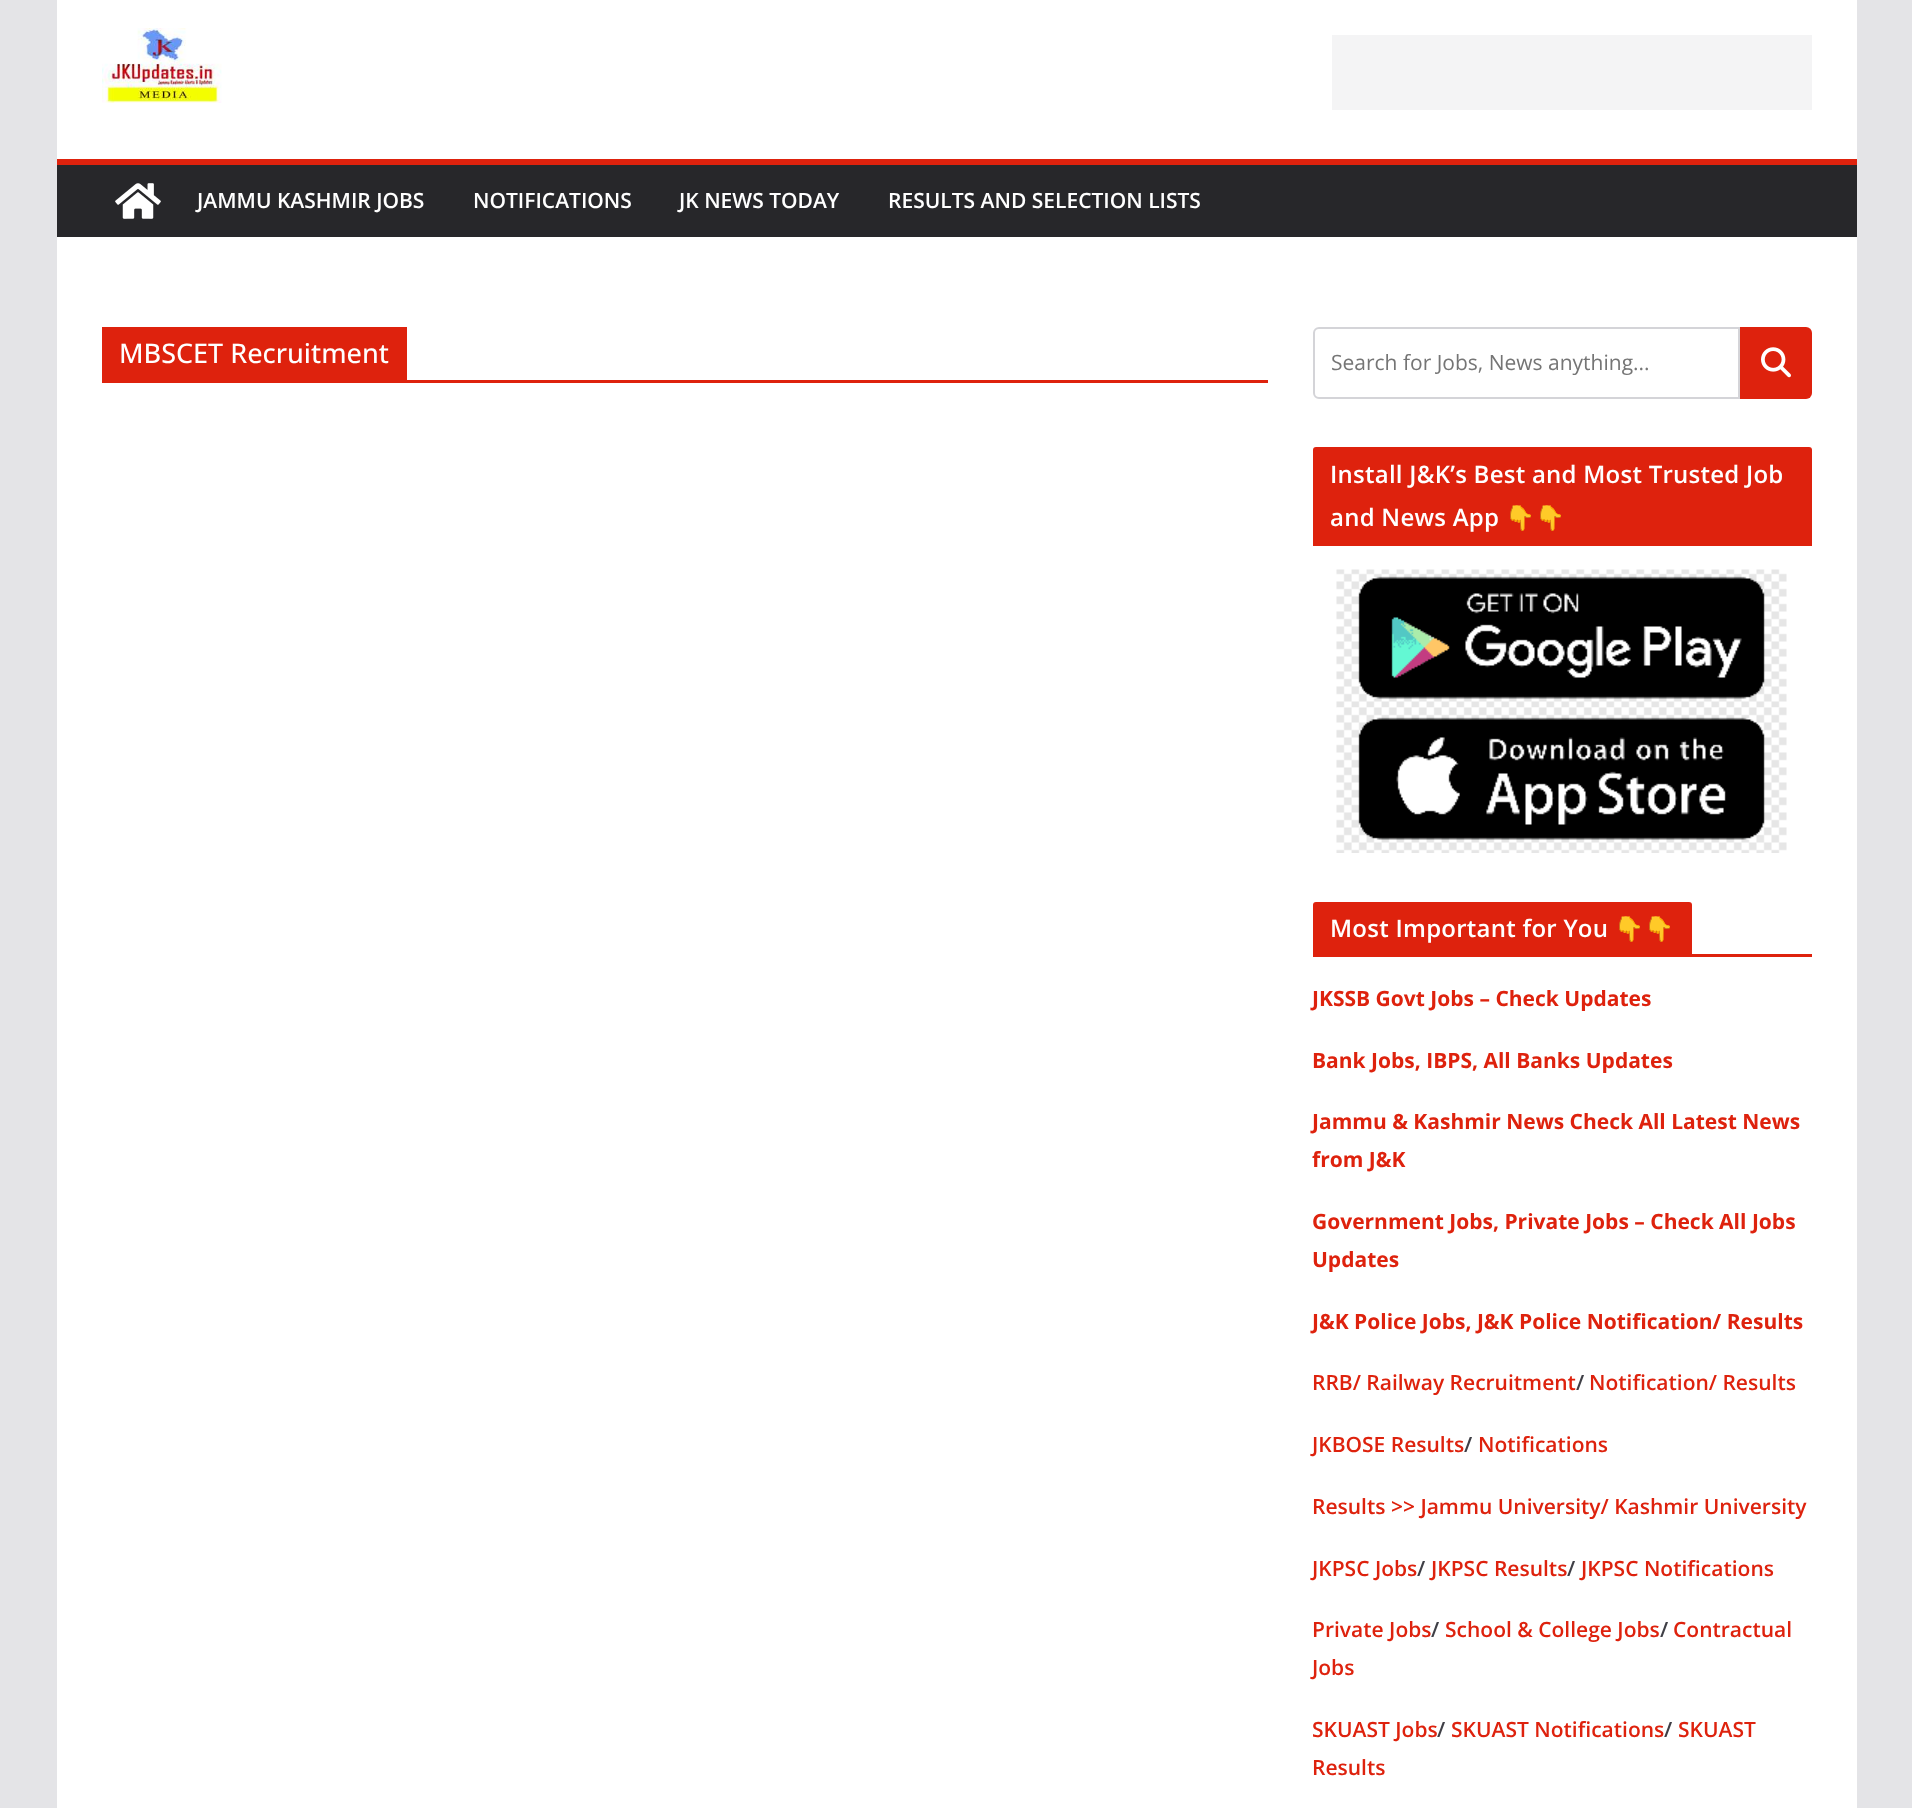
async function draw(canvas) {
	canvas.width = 1912;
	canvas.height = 1808;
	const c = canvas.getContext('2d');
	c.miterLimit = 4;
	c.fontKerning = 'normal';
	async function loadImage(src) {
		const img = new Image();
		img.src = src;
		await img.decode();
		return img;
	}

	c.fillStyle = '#e4e4e7';
	c.fillRect(0, 0, 1912, 1808);
	c.fillStyle = '#fff';
	c.fillRect(57, 0, 1800, 159);
	c.drawImage(await loadImage('img1.png'), 102, 28, 120, 75);
	for (const [x, y, w, h, color] of [
		[1332, 35, 480, 75, '#f4f4f5'],
		[57, 165, 1800, 72, '#27272a'],
		[57, 159, 1800, 6, '#de220d'],
	]) {
		c.fillStyle = color;
		c.fillRect(x, y, w, h);
	}
	c.drawImage(await loadImage('img2.png'), 115, 183, 46, 36);
	c.font = '600 21px Open Sans';
	c.fillStyle = '#fff';
	for (const [text, x, y] of [
		['JAMMU KASHMIR JOBS', 197, 208],
		['NOTIFICATIONS', 473, 208],
		['JK NEWS TODAY', 679, 208],
		['RESULTS AND SELECTION LISTS', 888, 208],
	]) {
		c.fillText(text, x, y);
	}
	for (const [x, y, w, h, color] of [
		[57, 237, 1800, 1571, '#fff'],
		[102, 380, 1166, 3, '#de220d'],
		[102, 327, 305, 53, '#de220d'],
	]) {
		c.fillStyle = color;
		c.fillRect(x, y, w, h);
	}
	c.font = '500 27px Open Sans';
	c.fillStyle = '#fff';
	c.fillText('MBSCET Recruitment', 119, 363);
	c.beginPath();
	c.roundRect(1314, 328, 425, 70, [5, 0, 0, 5]);
	c.strokeStyle = '#d4d4d8';
	c.lineWidth = 2;
	c.stroke();
	c.font = '21px Open Sans';
	c.fillStyle = '#757575';
	c.fillText('Search for Jobs, News anything...', 1331, 370);
	c.fillStyle = '#de220d';
	c.beginPath();
	c.roundRect(1740, 327, 72, 72, [0, 6, 6, 0]);
	c.fill();
	c.drawImage(await loadImage('img3.png'), 1761, 347, 30, 31);
	c.fillRect(1313, 543, 499, 3);
	c.beginPath();
	c.roundRect(1313, 447, 499, 96, [3, 3, 0, 0]);
	c.fill();
	c.letterSpacing = '0.25px';
	c.font = '600 24px Open Sans';
	c.fillStyle = '#fff';
	c.fillText('Install J&K’s Best and Most Trusted Job', 1330, 483);
	c.fillText('and News App', 1330, 526);
	c.font = 'bold 24px Noto Color Emoji';
	c.fillText('👇👇', 1505, 526);
	c.drawImage(await loadImage('img4.png'), 1336, 569, 451, 139);
	c.drawImage(await loadImage('img5.png'), 1336, 707, 451, 146);
	c.fillStyle = '#de220d';
	c.fillRect(1313, 954, 499, 3);
	c.beginPath();
	c.roundRect(1313, 902, 379, 52, [3, 3, 0, 0]);
	c.fill();
	c.font = '600 24px Open Sans';
	c.fillStyle = '#fff';
	c.fillText('Most Important for You', 1330, 937);
	c.font = 'bold 24px Noto Color Emoji';
	c.fillText('👇👇', 1614, 937);
	c.letterSpacing = '0px';
	c.font = 'bold 21px Open Sans';
	c.fillStyle = '#de220d';
	for (const [text, x, y] of [
		['JKSSB Govt Jobs – Check Updates', 1312, 1006],
		['Bank Jobs, IBPS, All Banks Updates', 1312, 1068],
		['Jammu & Kashmir News Check All Latest News', 1312, 1129],
		['from J&K', 1312, 1167],
		['Government Jobs, Private Jobs – Check All Jobs', 1312, 1229],
		['Updates', 1312, 1267],
		['J&K Police Jobs, J&K Police Notification/ Results', 1312, 1329],
	]) {
		c.fillText(text, x, y);
	}
	c.font = '600 21px Open Sans';
	c.fillText('RRB/ Railway Recruitment', 1312, 1390);
	c.fillStyle = '#3f3f46';
	c.fillText('/', 1576, 1390);
	c.fillStyle = '#de220d';
	c.fillText('Notification/ Results', 1589, 1390);
	c.fillText('JKBOSE Results', 1312, 1452);
	c.fillStyle = '#3f3f46';
	c.fillText('/', 1464, 1452);
	c.fillStyle = '#de220d';
	for (const [text, x, y] of [
		['Notifications', 1478, 1452],
		['Results >> Jammu University/ Kashmir University', 1312, 1514],
		['JKPSC Jobs', 1312, 1576],
	]) {
		c.fillText(text, x, y);
	}
	c.fillStyle = '#3f3f46';
	c.fillText('/', 1417, 1576);
	c.fillStyle = '#de220d';
	c.fillText('JKPSC Results', 1431, 1576);
	c.fillStyle = '#3f3f46';
	c.fillText('/', 1567, 1576);
	c.fillStyle = '#de220d';
	c.fillText('JKPSC Notifications', 1581, 1576);
	c.fillText('Private Jobs', 1312, 1637);
	c.fillStyle = '#3f3f46';
	c.fillText('/', 1431, 1637);
	c.fillStyle = '#de220d';
	c.fillText('School & College Jobs', 1445, 1637);
	c.fillStyle = '#3f3f46';
	c.fillText('/', 1660, 1637);
	c.fillStyle = '#de220d';
	for (const [text, x, y] of [
		['Contractual', 1673, 1637],
		['Jobs', 1312, 1675],
		['SKUAST Jobs', 1312, 1737],
	]) {
		c.fillText(text, x, y);
	}
	c.fillStyle = '#3f3f46';
	c.fillText('/', 1437, 1737);
	c.fillStyle = '#de220d';
	c.fillText('SKUAST Notifications', 1451, 1737);
	c.fillStyle = '#3f3f46';
	c.fillText('/', 1664, 1737);
	c.fillStyle = '#de220d';
	c.fillText('SKUAST', 1678, 1737);
	c.fillText('Results', 1312, 1775);
}

draw(document.querySelector('canvas'));
